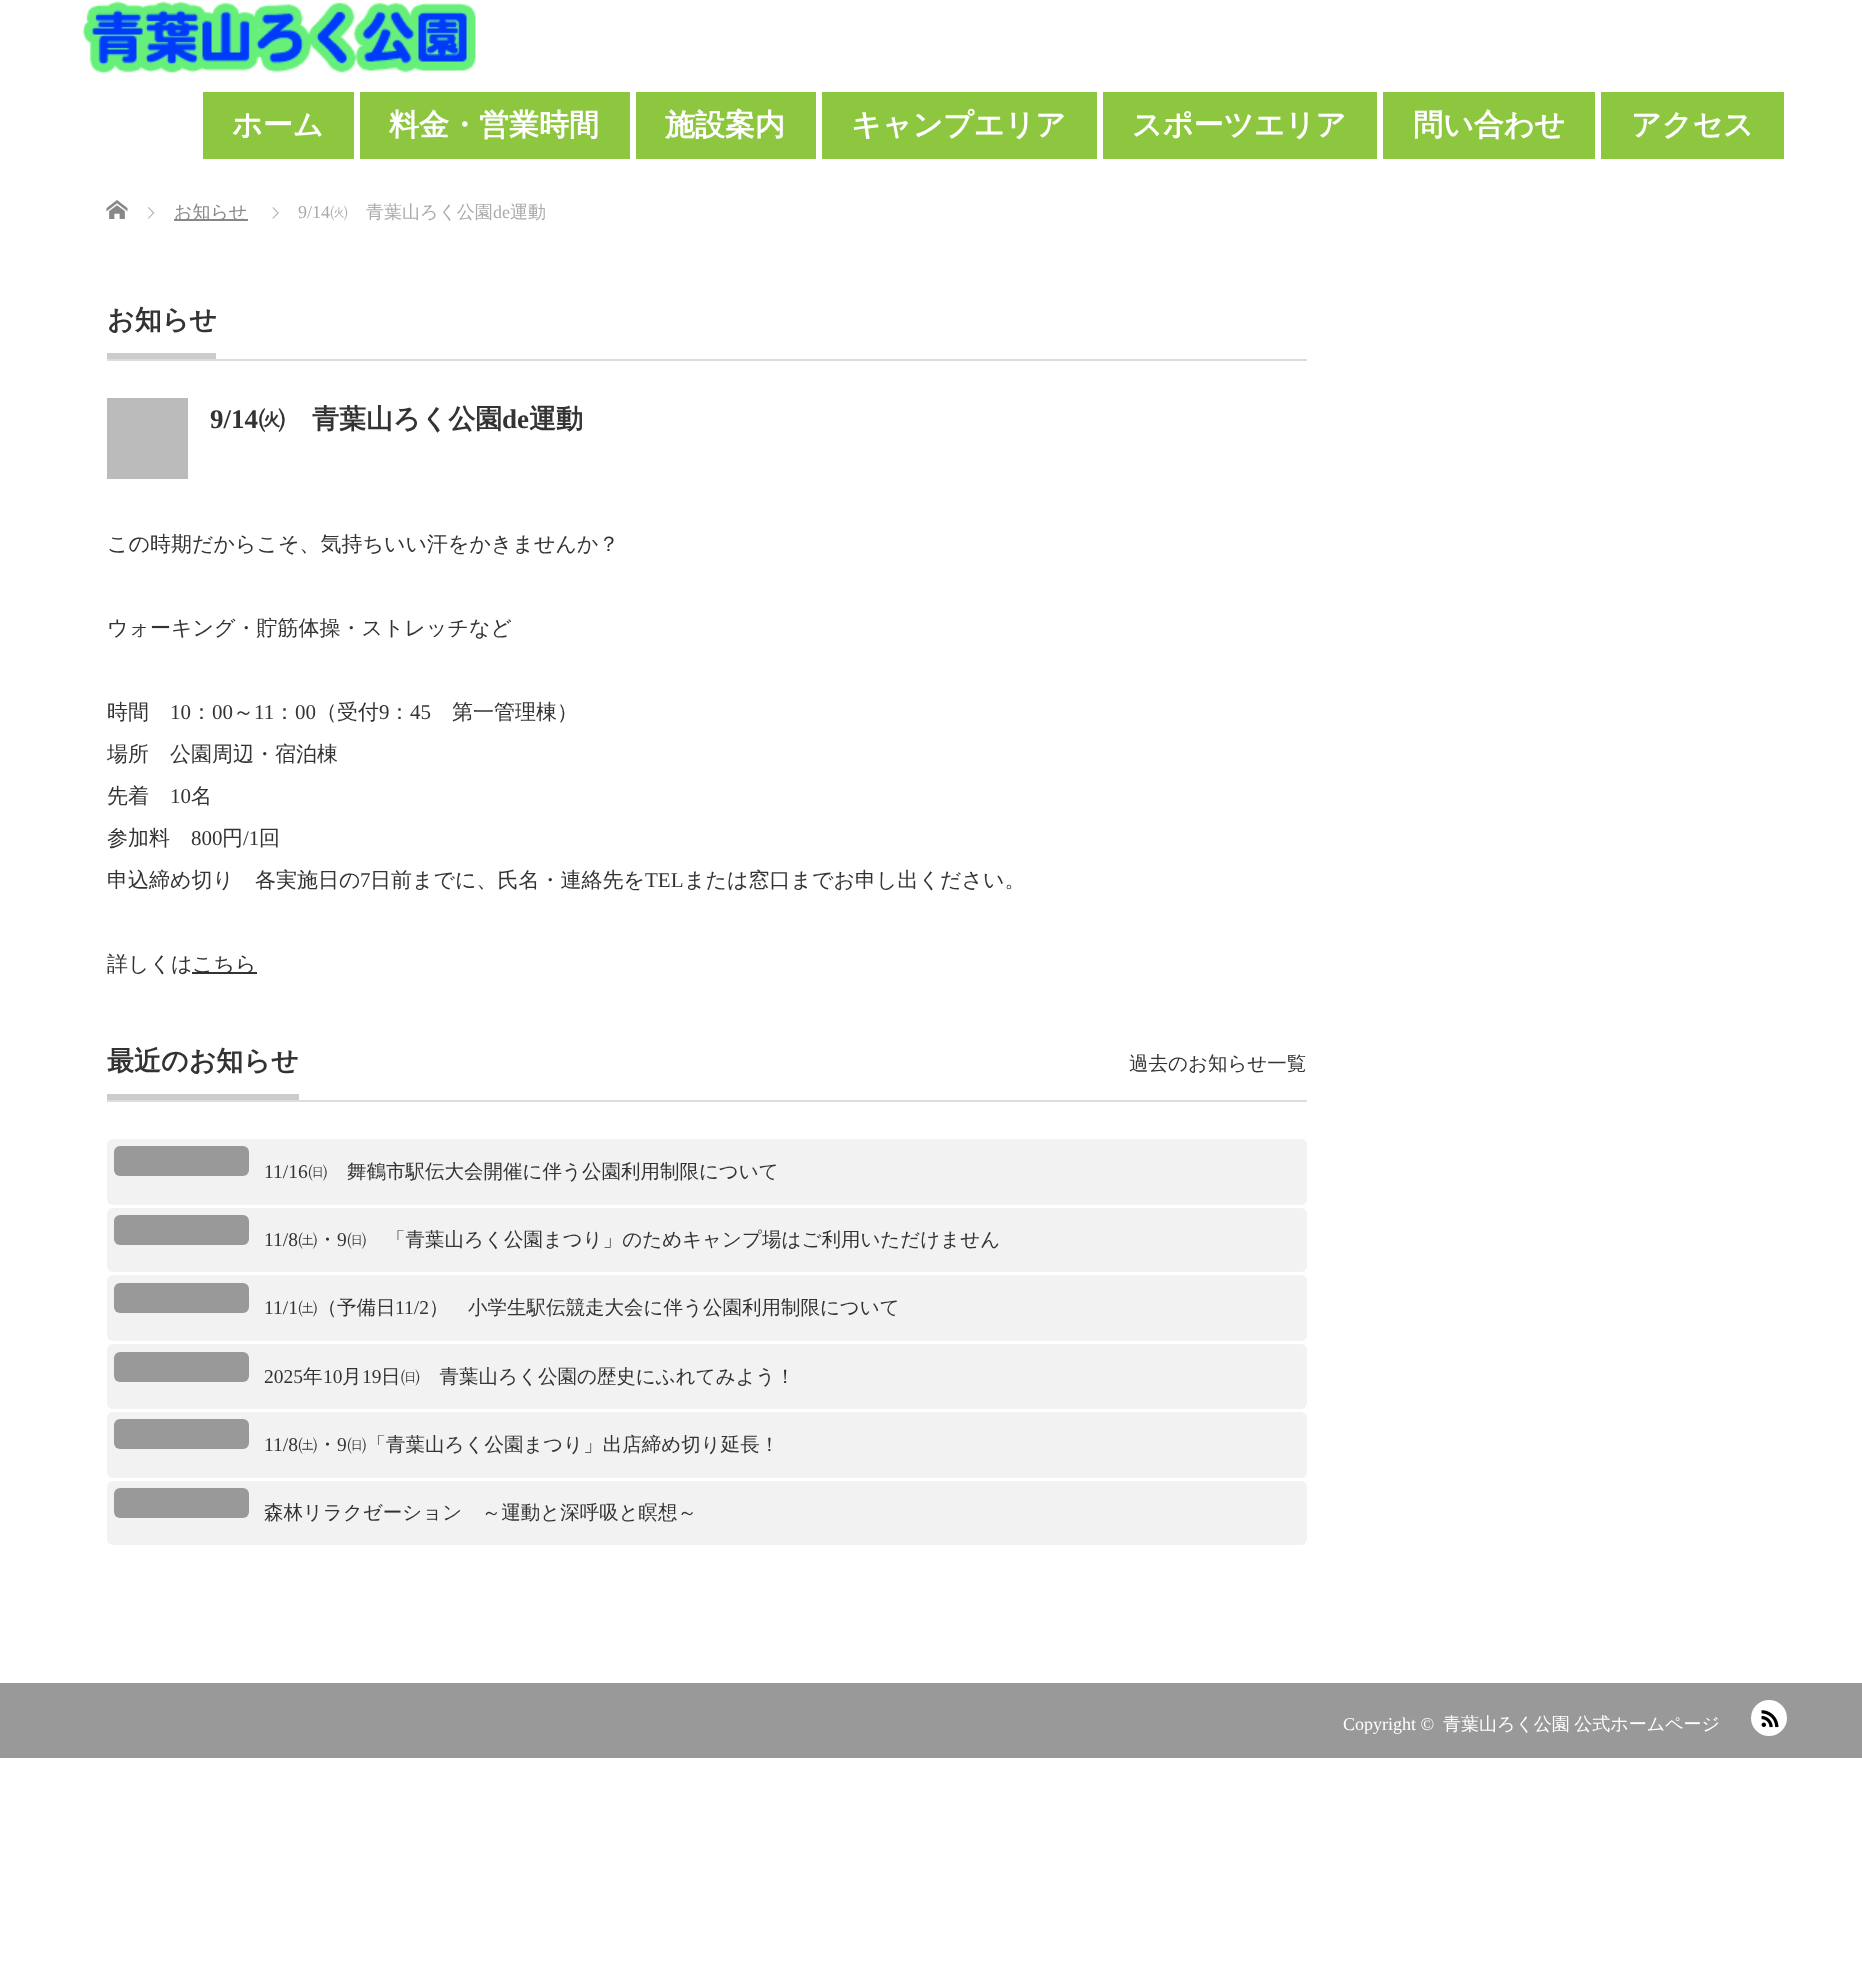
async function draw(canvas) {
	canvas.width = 1862;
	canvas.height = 1973;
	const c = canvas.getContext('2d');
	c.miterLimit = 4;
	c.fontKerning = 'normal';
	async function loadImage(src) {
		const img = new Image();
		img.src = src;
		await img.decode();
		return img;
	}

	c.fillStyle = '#fff';
	c.fillRect(0, 0, 1862, 1973);
	c.drawImage(await loadImage('img1.png'), 82, 1, 394, 73);
	c.fillStyle = '#8dc63f';
	c.fillRect(203, 92, 151, 67);
	c.font = 'bold 30px WenQuanYi Zen Hei';
	c.fillStyle = '#fff';
	c.fillText('ホーム', 232, 135);
	c.fillStyle = '#8dc63f';
	c.fillRect(360, 92, 270, 67);
	c.fillStyle = '#fff';
	c.fillText('料金・営業時間', 389, 135);
	c.fillStyle = '#8dc63f';
	c.fillRect(636, 92, 180, 67);
	c.fillStyle = '#fff';
	c.fillText('施設案内', 665, 135);
	c.fillStyle = '#8dc63f';
	c.fillRect(822, 92, 275, 67);
	c.fillStyle = '#fff';
	c.fillText('キャンプエリア', 851, 135);
	c.fillStyle = '#8dc63f';
	c.fillRect(1103, 92, 274, 67);
	c.fillStyle = '#fff';
	c.fillText('スポーツエリア', 1132, 135);
	c.fillStyle = '#8dc63f';
	c.fillRect(1383, 92, 212, 67);
	c.fillStyle = '#fff';
	c.fillText('問い合わせ', 1413, 135);
	c.fillStyle = '#8dc63f';
	c.fillRect(1601, 92, 183, 67);
	c.fillStyle = '#fff';
	c.fillText('アクセス', 1631, 135);
	c.drawImage(await loadImage('img2.png'), 106, 200, 22, 19);
	c.drawImage(await loadImage('img3.png'), 148, 207, 7, 12);
	c.fillStyle = '#888';
	c.fillRect(174, 219, 74, 2);
	c.font = '500 18px WenQuanYi Zen Hei';
	c.fillText('お知らせ', 174, 218);
	c.drawImage(await loadImage('img4.png'), 272, 207, 7, 12);
	c.font = '18px Liberation Serif';
	c.fillStyle = '#aaa';
	c.fillText('9/14', 298, 218);
	c.font = '500 18px WenQuanYi Zen Hei';
	c.fillText('㈫　青葉山ろく公園', 330, 218);
	c.font = '18px Liberation Serif';
	c.fillText('de', 493, 218);
	c.font = '500 18px WenQuanYi Zen Hei';
	c.fillText('運動', 510, 218);
	c.fillStyle = '#ddd';
	c.fillRect(107, 359, 1200, 2);
	c.fillStyle = '#ccc';
	c.fillRect(107, 353, 109, 6);
	c.font = 'bold 27px WenQuanYi Zen Hei';
	c.fillStyle = '#333';
	c.fillText('お知らせ', 107, 329);
	c.fillStyle = '#bbb';
	c.fillRect(107, 398, 81, 81);
	c.font = 'bold 27px Liberation Serif';
	c.fillStyle = '#333';
	c.fillText('9/14', 210, 428);
	c.font = 'bold 27px WenQuanYi Zen Hei';
	c.fillText('㈫　青葉山ろく公園', 258, 428);
	c.font = 'bold 27px Liberation Serif';
	c.fillText('de', 502, 428);
	c.font = 'bold 27px WenQuanYi Zen Hei';
	c.fillText('運動', 529, 428);
	c.font = '500 21px WenQuanYi Zen Hei';
	for (const [text, x, y] of [
		['この時期だからこそ、気持ちいい汗をかきませんか？', 107, 551],
		['ウォーキング・貯筋体操・ストレッチなど', 107, 635],
		['時間', 107, 719],
	]) {
		c.fillText(text, x, y);
	}
	c.font = '21px Liberation Serif';
	c.fillText('10', 170, 719);
	c.font = '500 21px WenQuanYi Zen Hei';
	c.fillText('：', 191, 719);
	c.font = '21px Liberation Serif';
	c.fillText('00', 212, 719);
	c.font = '500 21px WenQuanYi Zen Hei';
	c.fillText('～', 233, 719);
	c.font = '21px Liberation Serif';
	c.fillText('11', 254, 719);
	c.font = '500 21px WenQuanYi Zen Hei';
	c.fillText('：', 274, 719);
	c.font = '21px Liberation Serif';
	c.fillText('00', 295, 719);
	c.font = '500 21px WenQuanYi Zen Hei';
	c.fillText('（受付', 316, 719);
	c.font = '21px Liberation Serif';
	c.fillText('9', 379, 719);
	c.font = '500 21px WenQuanYi Zen Hei';
	c.fillText('：', 389, 719);
	c.font = '21px Liberation Serif';
	c.fillText('45', 410, 719);
	c.font = '500 21px WenQuanYi Zen Hei';
	for (const [text, x, y] of [
		['第一管理棟）', 452, 719],
		['場所　公園周辺・宿泊棟', 107, 761],
		['先着', 107, 803],
	]) {
		c.fillText(text, x, y);
	}
	c.font = '21px Liberation Serif';
	c.fillText('10', 170, 803);
	c.font = '500 21px WenQuanYi Zen Hei';
	c.fillText('名', 191, 803);
	c.fillText('参加料', 107, 845);
	c.font = '21px Liberation Serif';
	c.fillText('800', 191, 845);
	c.font = '500 21px WenQuanYi Zen Hei';
	c.fillText('円', 222, 845);
	c.font = '21px Liberation Serif';
	c.fillText('/1', 243, 845);
	c.font = '500 21px WenQuanYi Zen Hei';
	c.fillText('回', 259, 845);
	c.fillText('申込締め切り　各実施日の', 107, 887);
	c.font = '21px Liberation Serif';
	c.fillText('7', 360, 887);
	c.font = '500 21px WenQuanYi Zen Hei';
	c.fillText('日前までに、氏名・連絡先を', 370, 887);
	c.font = '21px Liberation Serif';
	c.fillText('TEL', 645, 887);
	c.font = '500 21px WenQuanYi Zen Hei';
	c.fillText('または窓口までお申し出ください。', 684, 887);
	c.fillText('詳しくは', 107, 971);
	c.fillRect(192, 972, 65, 2);
	c.fillText('こちら', 192, 971);
	c.fillStyle = '#ddd';
	c.fillRect(107, 1100, 1200, 2);
	c.fillStyle = '#ccc';
	c.fillRect(107, 1094, 192, 6);
	c.font = 'bold 27px WenQuanYi Zen Hei';
	c.fillStyle = '#333';
	c.fillText('最近のお知らせ', 107, 1070);
	c.font = '500 19.5px WenQuanYi Zen Hei';
	c.fillText('過去のお知らせ一覧', 1129, 1070);
	c.fillStyle = '#f2f2f2';
	c.beginPath();
	c.roundRect(107, 1139, 1200, 66, 6);
	c.fill();
	c.fillStyle = '#999';
	c.beginPath();
	c.roundRect(114, 1146, 135, 30, 6);
	c.fill();
	c.font = '19.5px Liberation Serif';
	c.fillStyle = '#333';
	c.fillText('11/16', 264, 1178);
	c.font = '500 19.5px WenQuanYi Zen Hei';
	c.fillText('㈰　舞鶴市駅伝大会開催に伴う公園利用制限について', 308, 1178);
	c.fillStyle = '#f2f2f2';
	c.beginPath();
	c.roundRect(107, 1208, 1200, 64, 6);
	c.fill();
	c.fillStyle = '#999';
	c.beginPath();
	c.roundRect(114, 1215, 135, 30, 6);
	c.fill();
	c.font = '19.5px Liberation Serif';
	c.fillStyle = '#333';
	c.fillText('11/8', 264, 1246);
	c.font = '500 19.5px WenQuanYi Zen Hei';
	c.fillText('㈯・', 298, 1246);
	c.font = '19.5px Liberation Serif';
	c.fillText('9', 337, 1246);
	c.font = '500 19.5px WenQuanYi Zen Hei';
	c.fillText('㈰　「青葉山ろく公園まつり」のためキャンプ場はご利用いただけません', 347, 1246);
	c.fillStyle = '#f2f2f2';
	c.beginPath();
	c.roundRect(107, 1275, 1200, 66, 6);
	c.fill();
	c.fillStyle = '#999';
	c.beginPath();
	c.roundRect(114, 1283, 135, 30, 6);
	c.fill();
	c.font = '19.5px Liberation Serif';
	c.fillStyle = '#333';
	c.fillText('11/1', 264, 1314);
	c.font = '500 19.5px WenQuanYi Zen Hei';
	c.fillText('㈯（予備日', 298, 1314);
	c.font = '19.5px Liberation Serif';
	c.fillText('11/2', 395, 1314);
	c.font = '500 19.5px WenQuanYi Zen Hei';
	c.fillText('）　小学生駅伝競走大会に伴う公園利用制限について', 429, 1314);
	c.fillStyle = '#f2f2f2';
	c.beginPath();
	c.roundRect(107, 1344, 1200, 65, 6);
	c.fill();
	c.fillStyle = '#999';
	c.beginPath();
	c.roundRect(114, 1352, 135, 30, 6);
	c.fill();
	c.font = '19.5px Liberation Serif';
	c.fillStyle = '#333';
	c.fillText('2025', 264, 1383);
	c.font = '500 19.5px WenQuanYi Zen Hei';
	c.fillText('年', 303, 1383);
	c.font = '19.5px Liberation Serif';
	c.fillText('10', 323, 1383);
	c.font = '500 19.5px WenQuanYi Zen Hei';
	c.fillText('月', 342, 1383);
	c.font = '19.5px Liberation Serif';
	c.fillText('19', 362, 1383);
	c.font = '500 19.5px WenQuanYi Zen Hei';
	c.fillText('日㈰　青葉山ろく公園の歴史にふれてみよう！', 381, 1383);
	c.fillStyle = '#f2f2f2';
	c.beginPath();
	c.roundRect(107, 1412, 1200, 66, 6);
	c.fill();
	c.fillStyle = '#999';
	c.beginPath();
	c.roundRect(114, 1419, 135, 30, 6);
	c.fill();
	c.font = '19.5px Liberation Serif';
	c.fillStyle = '#333';
	c.fillText('11/8', 264, 1451);
	c.font = '500 19.5px WenQuanYi Zen Hei';
	c.fillText('㈯・', 298, 1451);
	c.font = '19.5px Liberation Serif';
	c.fillText('9', 337, 1451);
	c.font = '500 19.5px WenQuanYi Zen Hei';
	c.fillText('㈰「青葉山ろく公園まつり」出店締め切り延長！', 347, 1451);
	c.fillStyle = '#f2f2f2';
	c.beginPath();
	c.roundRect(107, 1481, 1200, 64, 6);
	c.fill();
	c.fillStyle = '#999';
	c.beginPath();
	c.roundRect(114, 1488, 135, 30, 6);
	c.fill();
	c.fillStyle = '#333';
	c.fillText('森林リラクゼーション　～運動と深呼吸と瞑想～', 264, 1519);
	c.fillStyle = '#999';
	c.fillRect(0, 1683, 1862, 75);
	c.font = '18px Liberation Serif';
	c.fillStyle = '#fff';
	c.fillText('Copyright ©', 1343, 1730);
	c.wordSpacing = '-1px';
	c.font = '500 18px WenQuanYi Zen Hei';
	c.fillText('青葉山ろく公園 公式ホームページ', 1443, 1730);
	c.beginPath();
	c.arc(1769, 1718, 18, 0, 2 * Math.PI);
	c.fill();
	c.drawImage(await loadImage('img5.png'), 1761, 1710, 18, 18);
}

draw(document.querySelector('canvas'));
